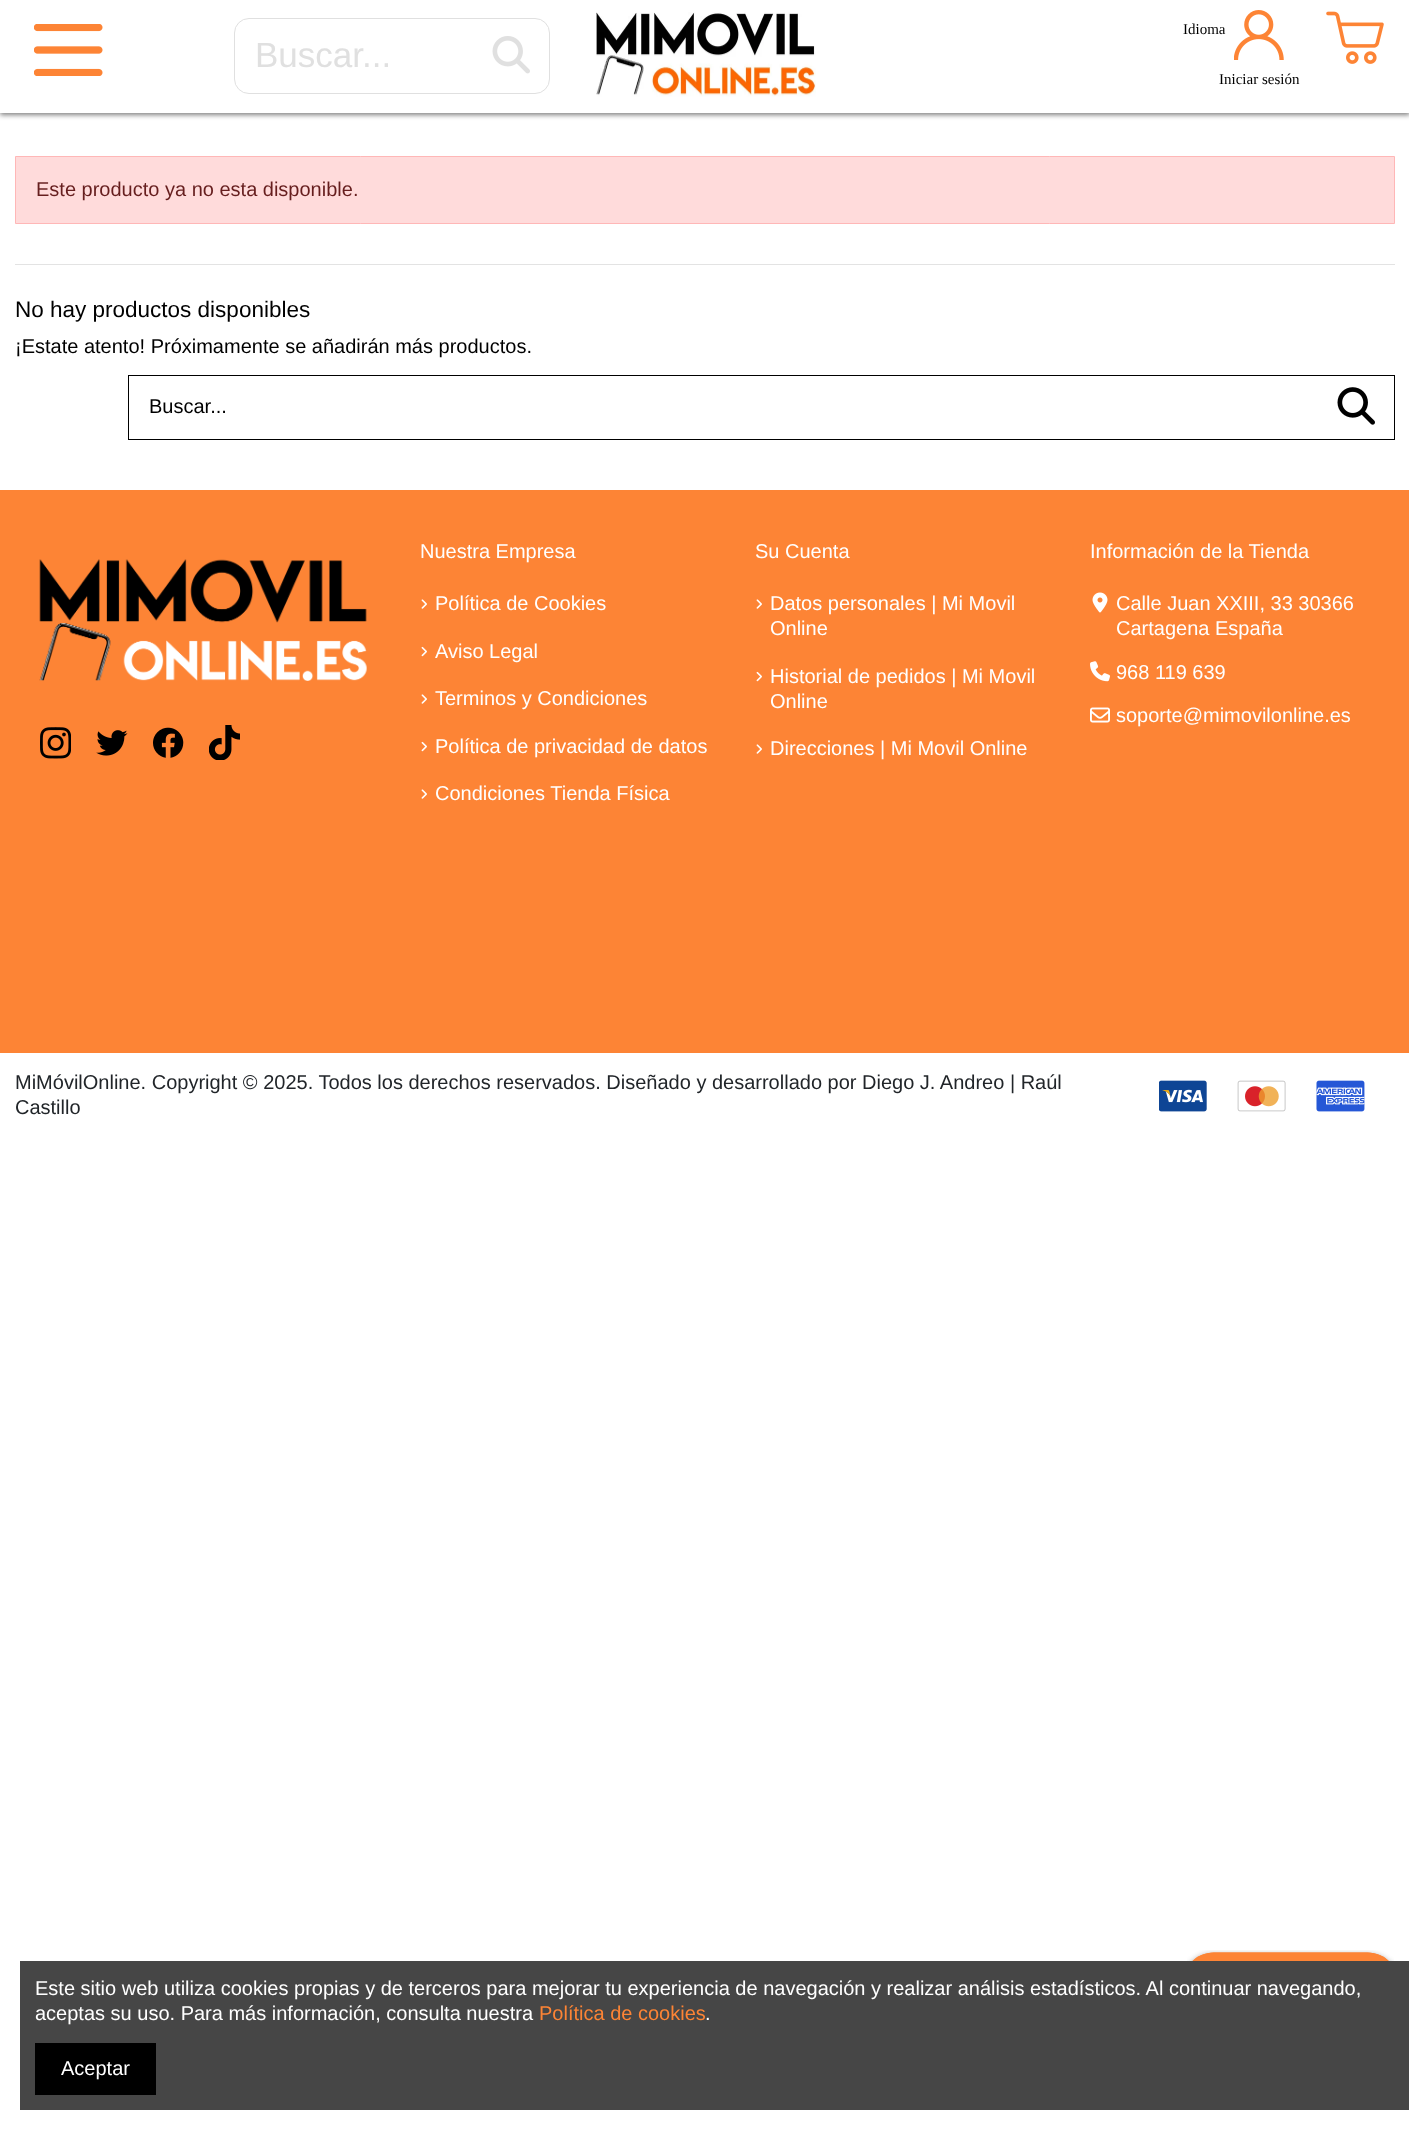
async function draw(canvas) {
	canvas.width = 1409;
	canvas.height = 2129;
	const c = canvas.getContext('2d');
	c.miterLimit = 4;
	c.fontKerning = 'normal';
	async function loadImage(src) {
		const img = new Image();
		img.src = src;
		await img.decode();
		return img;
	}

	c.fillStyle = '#fff';
	c.fillRect(0, 0, 1409, 2129);
	c.fillStyle = '#00000080';
	c.filter = 'blur(2.5px)';
	c.beginPath();
	c.rect(0, 3, 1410, 112);
	c.fill();
	c.filter = 'none';
	c.fillStyle = '#fff';
	c.fillRect(0, 0, 1409, 113);
	c.drawImage(await loadImage('img1.png'), 596, 12, 220, 85);
	c.font = '15px Liberation Serif';
	c.fillStyle = '#000';
	c.fillText('Idioma', 1183, 34);
	c.drawImage(await loadImage('img2.png'), 34, 24, 69, 52);
	c.beginPath();
	c.roundRect(234.5, 18.5, 315, 75, 14.5);
	c.strokeStyle = '#e0e0e0';
	c.stroke();
	c.font = '35px Liberation Sans';
	c.fillStyle = '#e0e0e0';
	c.fillText('Buscar...', 255, 67);
	c.drawImage(await loadImage('img3.png'), 492, 36, 38, 38);
	c.drawImage(await loadImage('img4.png'), 1326, 11, 58, 53);
	c.drawImage(await loadImage('img5.png'), 1234, 10, 50, 50);
	c.font = '15px Liberation Serif';
	c.fillStyle = '#000';
	c.fillText('Iniciar sesión', 1219, 84);
	c.drawImage(await loadImage('img6.png'), 1187, 1950, 207, 11);
	c.fillStyle = '#ffdbdb';
	c.beginPath();
	c.rect(15.5, 156.5, 1379, 67);
	c.fill();
	c.strokeStyle = '#ffb7b7';
	c.stroke();
	c.font = '20px Liberation Sans';
	c.fillStyle = '#661e1e';
	c.fillText('Este producto ya no esta disponible.', 36, 196);
	c.fillStyle = '#e3e3e3';
	c.fillRect(15, 264, 1380, 1);
	c.font = '22.5px Liberation Sans';
	c.fillStyle = '#000';
	c.fillText('No hay productos disponibles', 15, 317);
	c.font = '20px Liberation Sans';
	c.fillText('¡Estate atento! Próximamente se añadirán más productos.', 15, 353);
	c.strokeStyle = '#000';
	c.strokeRect(128.5, 375.5, 1266, 64);
	c.fillText('Buscar...', 149, 413);
	c.drawImage(await loadImage('img7.png'), 1337, 387, 38, 38);
	c.fillStyle = '#fd8435';
	c.fillRect(0, 490, 1409, 563);
	c.drawImage(await loadImage('img8.png'), 39, 559, 328, 122);
	c.drawImage(await loadImage('img9.png'), 40, 727, 31, 32);
	c.drawImage(await loadImage('img10.png'), 96, 730, 32, 26);
	c.drawImage(await loadImage('img11.png'), 153, 727, 31, 31);
	c.drawImage(await loadImage('img12.png'), 209, 725, 31, 35);
	c.fillStyle = '#fff';
	c.fillText('Nuestra Empresa', 420, 558);
	c.drawImage(await loadImage('img13.png'), 421, 599, 6, 10);
	c.fillText('Política de Cookies', 435, 610);
	c.drawImage(await loadImage('img14.png'), 421, 646, 6, 11);
	c.fillText('Aviso Legal', 435, 658);
	c.drawImage(await loadImage('img13.png'), 421, 694, 6, 10);
	c.fillText('Terminos y Condiciones', 435, 705);
	c.drawImage(await loadImage('img14.png'), 421, 741, 6, 11);
	c.fillText('Política de privacidad de datos', 435, 753);
	c.drawImage(await loadImage('img13.png'), 421, 789, 6, 10);
	c.fillText('Condiciones Tienda Física', 435, 800);
	c.fillText('Su Cuenta', 755, 558);
	c.drawImage(await loadImage('img13.png'), 756, 599, 6, 10);
	c.fillText('Datos personales | Mi Movil', 770, 610);
	c.fillText('Online', 770, 635);
	c.drawImage(await loadImage('img14.png'), 756, 671, 6, 11);
	c.fillText('Historial de pedidos | Mi Movil', 770, 683);
	c.fillText('Online', 770, 708);
	c.drawImage(await loadImage('img13.png'), 756, 744, 6, 10);
	c.fillText('Direcciones | Mi Movil Online', 770, 755);
	c.fillText('Información de la Tienda', 1090, 558);
	c.drawImage(await loadImage('img15.png'), 1092, 592, 16, 21);
	c.fillText('Calle Juan XXIII, 33 30366', 1116, 610);
	c.fillText('Cartagena España', 1116, 635);
	c.drawImage(await loadImage('img16.png'), 1090, 661, 20, 21);
	c.fillText('968 119 639', 1116, 679);
	c.drawImage(await loadImage('img17.png'), 1090, 707, 20, 16);
	c.fillText('soporte@mimovilonline.es', 1116, 722);
	c.fillStyle = '#212529';
	c.fillText('MiMóvilOnline. Copyright © 2025. Todos los derechos reservados. Diseñado y desarrollado por Diego J. Andreo | Raúl', 15, 1089);
	c.fillText('Castillo', 15, 1114);
	c.drawImage(await loadImage('img18.png'), 1159, 1080, 206, 32);
	c.fillStyle = '#464646';
	c.fillRect(20, 1961, 1389, 149);
	c.fillStyle = '#fff';
	c.fillText('Este sitio web utiliza cookies propias y de terceros para mejorar tu experiencia de navegación y realizar análisis estadísticos. Al continuar navegando,', 35, 1995);
	c.fillText('aceptas su uso. Para más información, consulta nuestra', 35, 2020);
	c.fillStyle = '#fd8435';
	c.fillText('Política de cookies', 539, 2020);
	c.fillStyle = '#fff';
	c.fillText('.', 705, 2020);
	c.fillStyle = '#000';
	c.fillRect(35, 2043, 121, 52);
	c.fillStyle = '#fff';
	c.fillText('Aceptar', 61, 2075);
}

draw(document.querySelector('canvas'));
